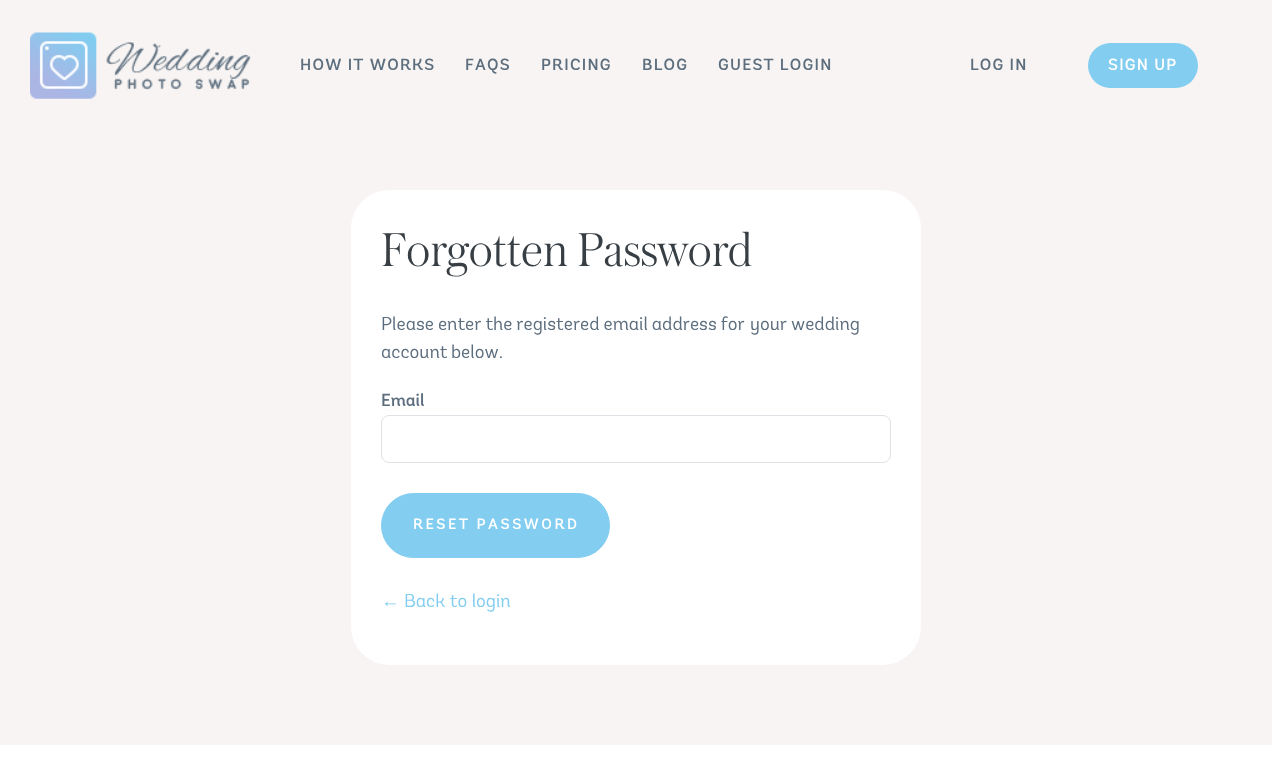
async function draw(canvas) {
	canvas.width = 1272;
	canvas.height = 767;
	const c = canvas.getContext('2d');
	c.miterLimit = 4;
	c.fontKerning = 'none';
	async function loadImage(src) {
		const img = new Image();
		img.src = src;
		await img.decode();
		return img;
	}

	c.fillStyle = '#f7f4f3';
	c.fillRect(0, 0, 1272, 767);
	c.drawImage(await loadImage('img1.png'), 30, 32, 221, 67);
	c.letterSpacing = '1.25px';
	c.font = '500 16.25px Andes';
	c.fillStyle = '#5c6d7d';
	for (const [text, x, y] of [
		['HOW IT WORKS', 300, 70],
		['FAQS', 465, 70],
		['PRICING', 541, 70],
		['BLOG', 642, 70],
		['GUEST LOGIN', 718, 70],
		['LOG IN', 970, 70],
	]) {
		c.fillText(text, x, y);
	}
	c.fillStyle = '#82cdf0';
	c.beginPath();
	c.roundRect(1088, 43, 110, 45, 22.5);
	c.fill();
	c.fillStyle = '#fff';
	c.fillText('SIGN UP', 1108, 70);
	c.beginPath();
	c.roundRect(351, 190, 570, 475, 38);
	c.fill();
	c.letterSpacing = '0px';
	c.font = '200 50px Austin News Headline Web';
	c.fillStyle = '#373e44';
	c.fillText('Forgotten Password', 381, 266);
	c.wordSpacing = '-0.5px';
	c.font = '18.75px Andes';
	c.fillStyle = '#5c6d7d';
	c.fillText('Please enter the registered email address for', 381, 330);
	c.fillText('your wedding', 750, 330);
	c.wordSpacing = '-1px';
	c.fillText('account below.', 381, 358);
	c.wordSpacing = '0px';
	c.font = '500 17.5px Andes';
	c.fillText('Email', 381, 406);
	c.beginPath();
	c.roundRect(381.5, 415.5, 509, 47, 7.5);
	c.strokeStyle = '#dee2e6';
	c.stroke();
	c.fillStyle = '#82cdf0';
	c.beginPath();
	c.roundRect(381.5, 493.5, 228, 64, 32);
	c.fill();
	c.strokeStyle = '#82cdf0';
	c.stroke();
	c.letterSpacing = '2.5px';
	c.font = '500 15px Andes';
	c.fillStyle = '#fff';
	c.fillText('RESET PASSWORD', 413, 529);
	c.letterSpacing = '0px';
	c.font = '18.75px Liberation Sans';
	c.fillStyle = '#82cdf0';
	c.fillText('←', 381, 607);
	c.font = '18.75px Andes';
	c.fillText('Back to login', 404, 607);
	c.fillStyle = '#fff';
	c.fillRect(0, 745, 1272, 22);
}

draw(document.querySelector('canvas'));
